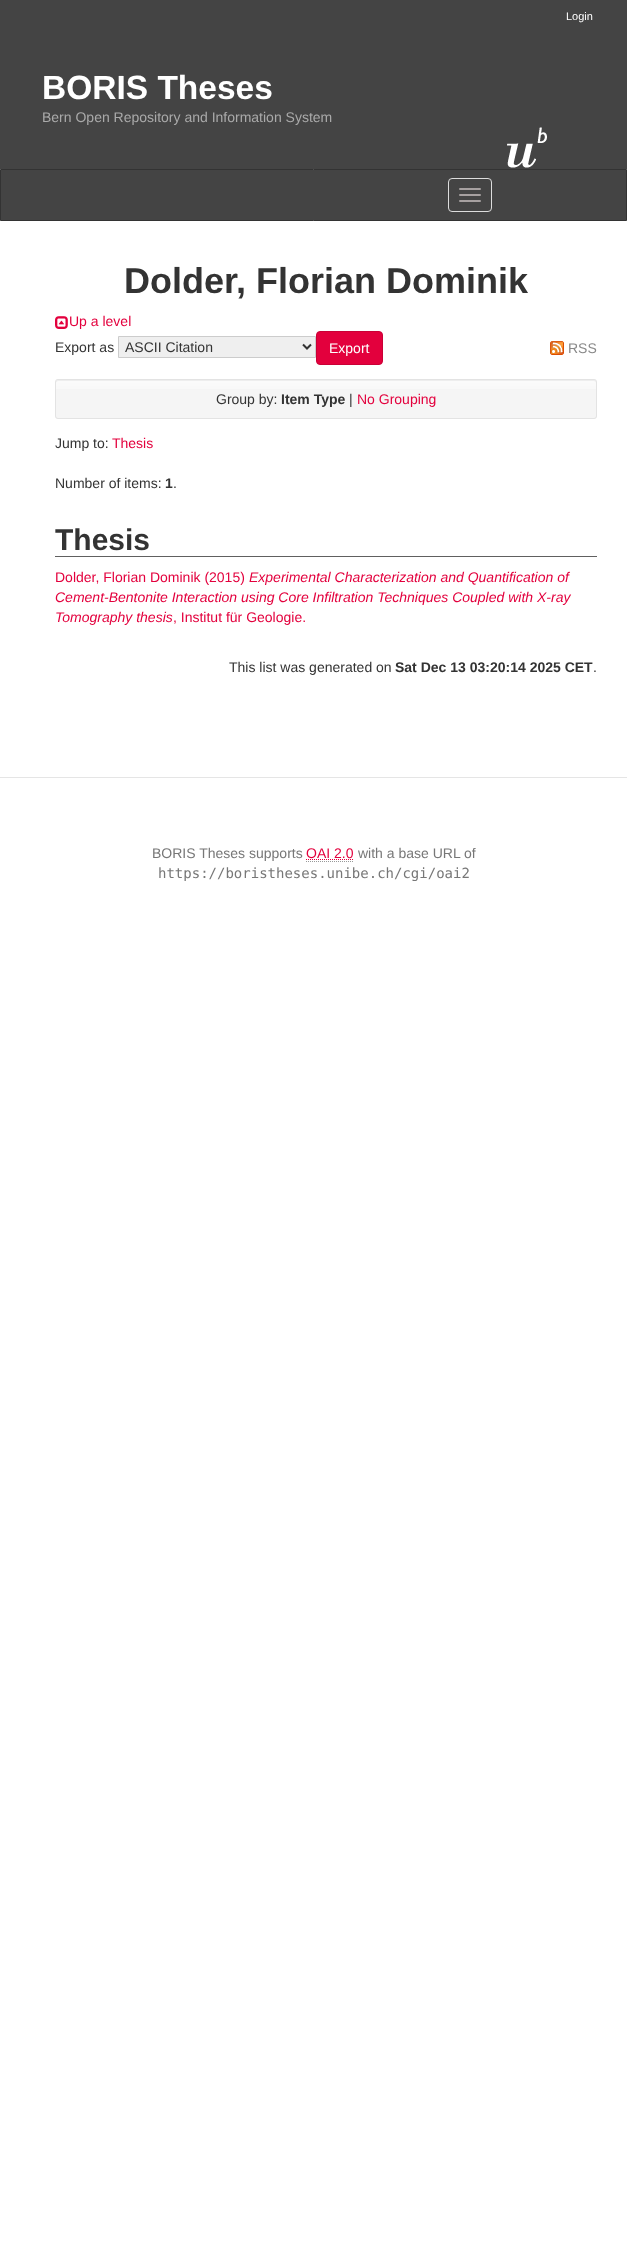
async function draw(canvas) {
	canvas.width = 627;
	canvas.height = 2257;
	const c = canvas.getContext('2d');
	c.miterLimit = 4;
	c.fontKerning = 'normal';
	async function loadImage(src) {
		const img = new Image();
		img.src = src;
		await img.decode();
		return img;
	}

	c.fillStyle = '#fff';
	c.fillRect(0, 0, 627, 2257);
	c.fillStyle = '#444';
	c.fillRect(0, 0, 627, 169);
	c.font = '11px Liberation Sans';
	c.fillStyle = '#fff';
	c.fillText('Login', 566, 20);
	c.font = 'bold 33.5px Liberation Sans';
	c.fillText('BORIS Theses', 42, 99);
	c.font = '14px Liberation Sans';
	c.fillStyle = '#aaa';
	c.fillText('Bern Open Repository and Information System', 42, 122);
	c.drawImage(await loadImage('img1.png'), 507, 127, 40, 41);
	c.fillStyle = '#444';
	c.beginPath();
	c.rect(0.5, 169.5, 626, 51);
	c.fill();
	c.strokeStyle = '#333';
	c.stroke();
	c.beginPath();
	c.roundRect(448.5, 178.5, 43, 33, 3.5);
	c.strokeStyle = '#ddd';
	c.stroke();
	c.fillStyle = '#a6a0a0';
	c.beginPath();
	c.roundRect(459, 188, 22, 2, 1);
	c.fill();
	c.beginPath();
	c.roundRect(459, 194, 22, 2, 1);
	c.fill();
	c.beginPath();
	c.roundRect(459, 200, 22, 2, 1);
	c.fill();
	c.font = 'bold 36px Liberation Sans';
	c.fillStyle = '#333';
	c.fillText('Dolder, Florian Dominik', 124, 293);
	c.drawImage(await loadImage('img2.png'), 55, 316, 13, 13);
	c.font = '14px Liberation Sans';
	c.fillStyle = '#e3003d';
	c.fillText('Up a level', 69, 326);
	c.fillStyle = '#333';
	c.fillText('Export as', 55, 352);
	c.fillStyle = '#efefef';
	c.beginPath();
	c.rect(118.5, 336.5, 197, 21);
	c.fill();
	c.strokeStyle = '#ccc';
	c.stroke();
	c.beginPath();
	c.moveTo(303, 344.5);
	c.lineTo(307, 348.5);
	c.lineTo(311, 344.5);
	c.strokeStyle = '#333';
	c.lineWidth = 2;
	c.stroke();
	c.fillStyle = '#333';
	c.fillText('ASCII Citation', 125, 352);
	c.fillStyle = '#e3003d';
	c.beginPath();
	c.roundRect(316.5, 331.5, 66, 33, 3.5);
	c.fill();
	c.strokeStyle = '#ca0036';
	c.lineWidth = 1;
	c.stroke();
	c.fillStyle = '#fff';
	c.fillText('Export', 329, 353);
	c.drawImage(await loadImage('img3.png'), 550, 341, 14, 14);
	c.fillStyle = '#888';
	c.fillText('RSS', 568, 353);
	c.fillStyle = '#f5f5f5';
	c.beginPath();
	c.roundRect(55, 379, 542, 40, 3);
	c.fill();
	c.drawImage(await loadImage('img4.png'), 55, 380, 542, 9);
	c.fillStyle = '#eee';
	c.beginPath();
	c.moveTo(58, 381);
	c.lineTo(594, 381);
	c.bezierCurveTo(595, 381, 596, 382, 596, 383);
	c.bezierCurveTo(596, 382, 596, 380, 594, 380);
	c.lineTo(58, 380);
	c.lineTo(56, 381);
	c.lineTo(56, 383);
	c.bezierCurveTo(56, 382, 57, 381, 58, 381);
	c.closePath();
	c.fill();
	c.beginPath();
	c.roundRect(55.5, 379.5, 541, 39, 2.5);
	c.strokeStyle = '#e3e3e3';
	c.stroke();
	c.fillStyle = '#333';
	c.fillText('Group by:', 216, 404);
	c.font = 'bold 14px Liberation Sans';
	c.fillText('Item Type', 281, 404);
	c.font = '14px Liberation Sans';
	c.fillText('|', 349, 404);
	c.fillStyle = '#e3003d';
	c.fillText('No Grouping', 357, 404);
	c.fillStyle = '#333';
	c.fillText('Jump to:', 55, 448);
	c.fillStyle = '#e3003d';
	c.fillText('Thesis', 112, 448);
	c.fillStyle = '#333';
	c.fillText('Number of items:', 55, 488);
	c.font = 'bold 14px Liberation Sans';
	c.fillText('1', 165, 488);
	c.font = '14px Liberation Sans';
	c.fillText('.', 173, 488);
	c.fillStyle = '#606060';
	c.fillRect(55, 556, 542, 1);
	c.font = 'bold 30px Liberation Sans';
	c.fillStyle = '#333';
	c.fillText('Thesis', 55, 550);
	c.font = '14px Liberation Sans';
	c.fillStyle = '#e3003d';
	c.fillText('Dolder, Florian Dominik (2015)', 55, 582);
	c.font = 'italic 14px Liberation Sans';
	for (const [text, x, y] of [
		['Experimental Characterization and Quantification of', 249, 582],
		['Cement-Bentonite Interaction using Core Infiltration Techniques Coupled with X-ray', 55, 602],
		['Tomography thesis', 55, 622],
	]) {
		c.fillText(text, x, y);
	}
	c.font = '14px Liberation Sans';
	c.fillText(', Institut für Geologie.', 173, 622);
	c.fillStyle = '#333';
	c.fillText('This list was generated on', 229, 672);
	c.font = 'bold 14px Liberation Sans';
	c.fillText('Sat Dec 13 03:20:14 2025 CET', 395, 672);
	c.font = '14px Liberation Sans';
	c.fillText('.', 593, 672);
	c.fillStyle = '#e5e5e5';
	c.fillRect(0, 777, 627, 1);
	c.fillStyle = '#777';
	c.fillText('BORIS Theses supports', 152, 858);
	c.fillStyle = '#e3003d';
	c.fillText('OAI 2.0', 306, 858);
	c.beginPath();
	c.moveTo(306, 861.5);
	c.lineTo(354, 861.5);
	c.strokeStyle = '#999';
	c.setLineDash([1, 1]);
	c.stroke();
	c.beginPath();
	c.moveTo(306, 859.5);
	c.lineTo(353.5, 859.5);
	c.strokeStyle = '#e3003d';
	c.stroke();
	c.fillStyle = '#777';
	c.fillText('with a base URL of', 358, 858);
	c.font = '14px DejaVu Sans Mono';
	c.fillText('https://boristheses.unibe.ch/cgi/oai2', 158, 878);
}

draw(document.querySelector('canvas'));
